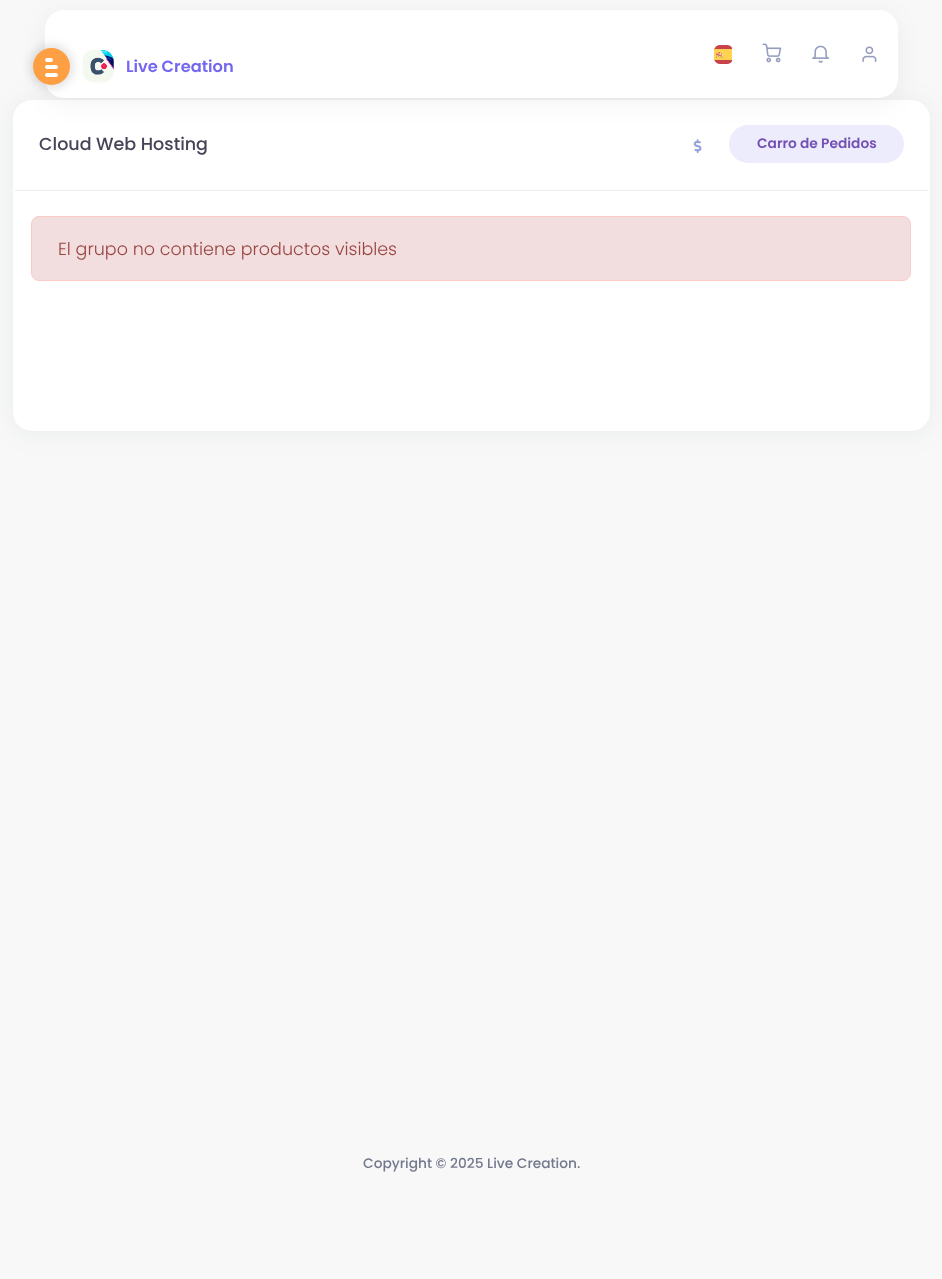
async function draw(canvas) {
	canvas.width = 942;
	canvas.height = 1279;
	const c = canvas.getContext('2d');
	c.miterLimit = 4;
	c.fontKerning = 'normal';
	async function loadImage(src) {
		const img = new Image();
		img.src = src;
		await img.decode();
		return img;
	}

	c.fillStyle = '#f8f8f8';
	c.fillRect(0, 0, 942, 1279);
	c.fillStyle = '#455a6414';
	c.filter = 'blur(12.5px)';
	c.beginPath();
	c.roundRect(13, 101, 917, 332, 19);
	c.fill();
	c.filter = 'none';
	c.fillStyle = '#fff';
	c.beginPath();
	c.roundRect(13, 100, 917, 331, 19);
	c.fill();
	c.drawImage(await loadImage('img6.png'), 693, 139, 9, 14);
	c.fillStyle = '#edecfc';
	c.beginPath();
	c.roundRect(729, 125, 175, 38, 19);
	c.fill();
	c.fillStyle = '#0000000d';
	c.filter = 'blur(12.5px)';
	c.beginPath();
	c.roundRect(45, 15, 853, 88, 19);
	c.fill();
	c.filter = 'none';
	c.fillStyle = '#fff';
	c.beginPath();
	c.roundRect(45, 10, 853, 88, 19);
	c.fill();
	c.drawImage(await loadImage('img1.png'), 714, 45, 18, 19);
	c.drawImage(await loadImage('img2.png'), 762, 43, 20, 20);
	c.drawImage(await loadImage('img3.png'), 812, 45, 18, 18);
	c.drawImage(await loadImage('img4.png'), 862, 46, 15, 16);
	c.drawImage(await loadImage('img5.png'), 82, 50, 32, 33);
	c.fillStyle = '#0000001a';
	c.filter = 'blur(4.5px)';
	c.beginPath();
	c.roundRect(29, 44, 45, 45, 22.5);
	c.fill();
	c.filter = 'none';
	c.fillStyle = '#ff9f43';
	c.beginPath();
	c.arc(51.5, 66.5, 18.5, 0, 2 * Math.PI);
	c.fill();
	c.fillStyle = '#fff';
	c.beginPath();
	c.roundRect(45, 65, 13, 4, 2);
	c.fill();
	c.beginPath();
	c.roundRect(45, 58, 8, 4, 2);
	c.fill();
	c.beginPath();
	c.roundRect(45, 73, 13, 4, 2);
	c.fill();
	c.font = '600 16.25px Poppins';
	c.fillStyle = '#7367f0';
	c.fillText('Live Creation', 126, 72);
	c.fillStyle = '#ebedf2';
	c.fillRect(15, 190, 913, 1);
	c.font = '500 17.5px Poppins';
	c.fillStyle = '#464457';
	c.fillText('Cloud Web Hosting', 39, 150);
	c.font = '600 13.75px Poppins';
	c.fillStyle = '#7350b3';
	c.fillText('Carro de Pedidos', 757, 148);
	c.fillStyle = '#f2dede';
	c.beginPath();
	c.roundRect(31.5, 216.5, 879, 64, 7.5);
	c.fill();
	c.strokeStyle = '#fccac7';
	c.stroke();
	c.font = '300 17.5px Poppins';
	c.fillStyle = '#994442';
	c.fillText('El grupo no contiene productos visibles', 58, 255);
	c.font = '500 13.75px Poppins';
	c.fillStyle = '#74788d';
	c.fillText('Copyright © 2025 Live Creation.', 363, 1168);
}

draw(document.querySelector('canvas'));
